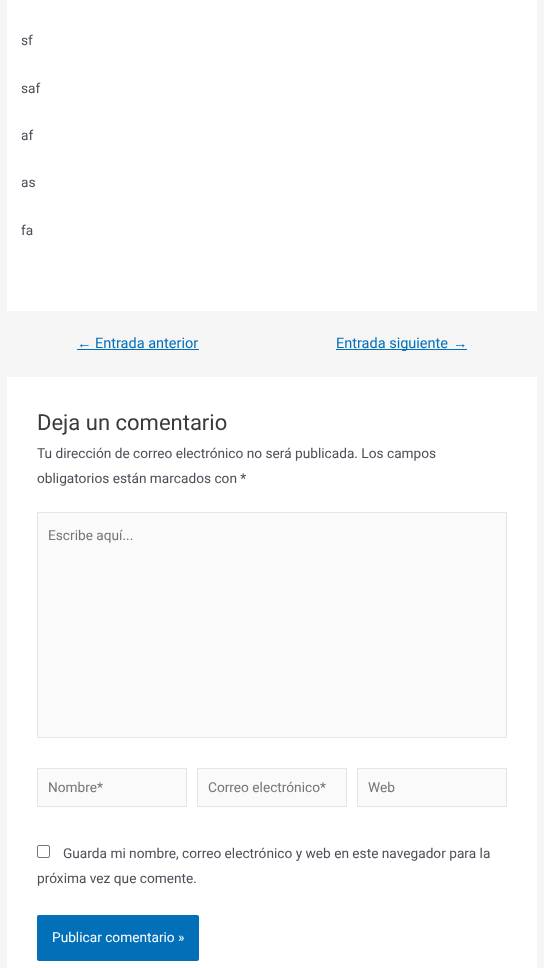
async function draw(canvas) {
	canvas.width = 544;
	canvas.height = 968;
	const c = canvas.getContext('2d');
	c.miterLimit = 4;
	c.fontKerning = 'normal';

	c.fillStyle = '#f5f5f5';
	c.fillRect(0, 0, 544, 968);
	c.fillStyle = '#fff';
	c.fillRect(7, 0, 530, 311);
	c.font = '13.7px Roboto';
	c.fillStyle = '#4b4f58';
	for (const [text, x, y] of [
		['sf', 21, 45],
		['saf', 21, 93],
		['af', 21, 140],
		['as', 21, 187],
		['fa', 21, 235],
	]) {
		c.fillText(text, x, y);
	}
	c.font = '14.5px Liberation Sans';
	c.fillStyle = '#0170b9';
	c.fillText('←', 77, 348);
	c.fillRect(77, 349, 122, 1);
	c.font = '14.5px Roboto';
	c.fillText('Entrada anterior', 95, 348);
	c.fillRect(336, 349, 131, 1);
	c.fillText('Entrada siguiente', 336, 348);
	c.font = '14.5px Liberation Sans';
	c.fillText('→', 453, 348);
	c.fillStyle = '#fff';
	c.fillRect(7, 377, 530, 591);
	c.font = '22px Roboto';
	c.fillStyle = '#3a3a3a';
	c.fillText('Deja un comentario', 37, 430);
	c.font = '13.7px Roboto';
	c.fillStyle = '#4b4f58';
	c.fillText('Tu dirección de correo electrónico no será publicada. Los campos', 37, 458);
	c.fillText('obligatorios están marcados con *', 37, 483);
	c.fillStyle = '#fafafa';
	c.beginPath();
	c.rect(37.5, 512.5, 469, 225);
	c.fill();
	c.strokeStyle = '#e5e5e5';
	c.stroke();
	c.fillStyle = '#757575';
	c.fillText('Escribe aquí...', 48, 540);
	c.fillStyle = '#fafafa';
	c.beginPath();
	c.rect(37.5, 768.5, 149, 38);
	c.fill();
	c.stroke();
	c.fillStyle = '#757575';
	c.fillText('Nombre*', 48, 792);
	c.fillStyle = '#fafafa';
	c.beginPath();
	c.rect(197.5, 768.5, 149, 38);
	c.fill();
	c.stroke();
	c.fillStyle = '#757575';
	c.fillText('Correo electrónico*', 208, 792);
	c.fillStyle = '#fafafa';
	c.beginPath();
	c.rect(357.5, 768.5, 149, 38);
	c.fill();
	c.stroke();
	c.fillStyle = '#757575';
	c.fillText('Web', 368, 792);
	c.beginPath();
	c.roundRect(37.5, 845.5, 12, 12, 1.5);
	c.strokeStyle = '#767676';
	c.stroke();
	c.fillStyle = '#4b4f58';
	c.fillText('Guarda mi nombre, correo electrónico y web en este navegador para la', 63, 858);
	c.fillText('próxima vez que comente.', 37, 883);
	c.fillStyle = '#0170b9';
	c.beginPath();
	c.roundRect(37, 915, 162, 46, 2);
	c.fill();
	c.fillStyle = '#fff';
	c.fillText('Publicar comentario »', 52, 942);
}

draw(document.querySelector('canvas'));
